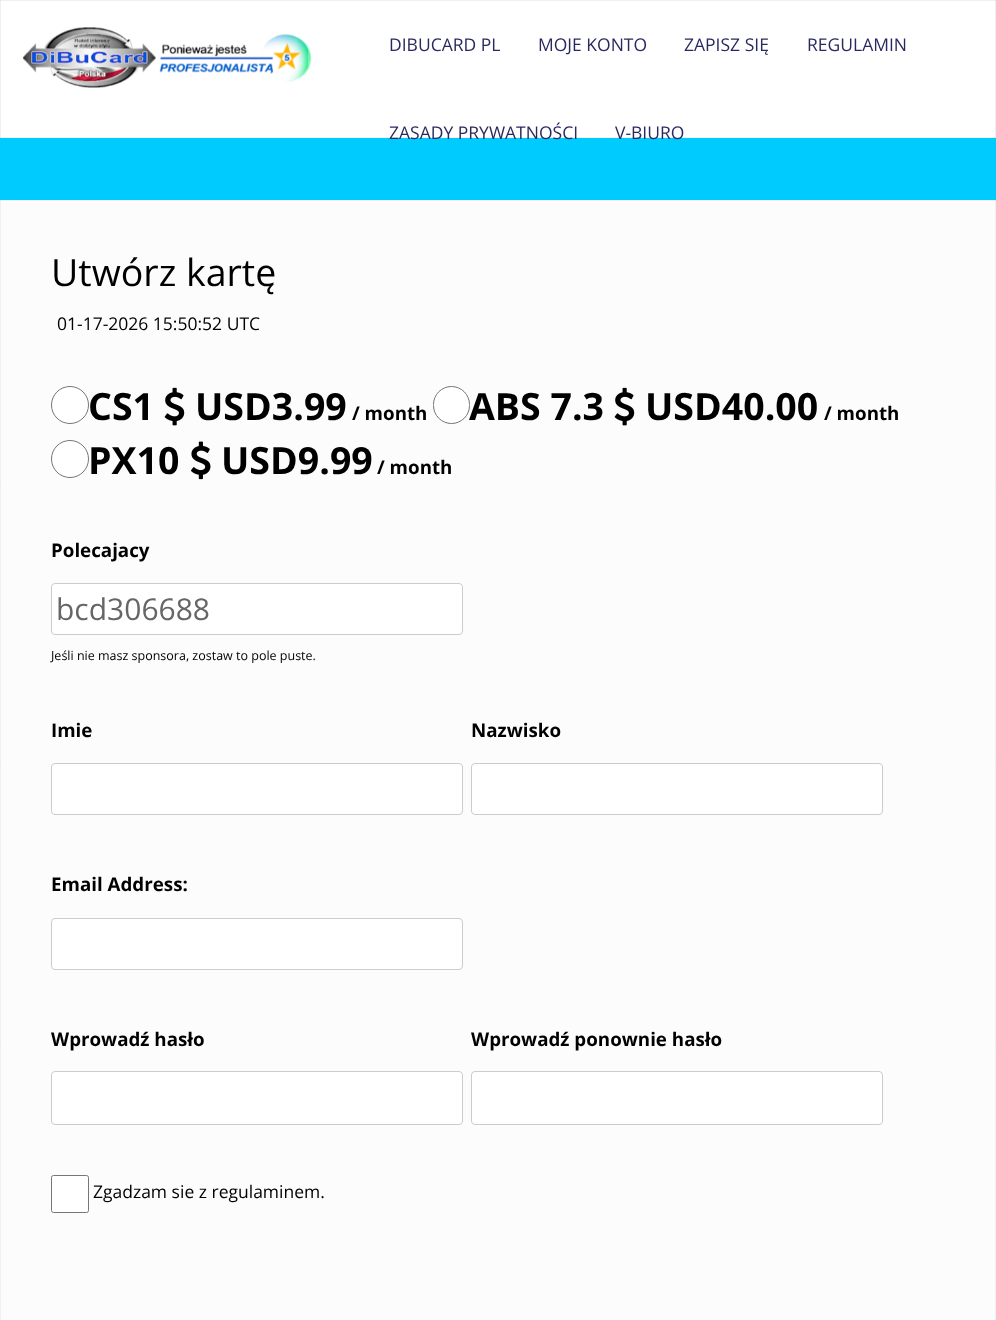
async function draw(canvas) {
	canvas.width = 996;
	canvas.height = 1320;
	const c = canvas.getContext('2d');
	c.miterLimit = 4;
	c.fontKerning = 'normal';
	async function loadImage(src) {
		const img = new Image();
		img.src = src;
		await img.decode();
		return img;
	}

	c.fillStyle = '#00cbff';
	c.fillRect(0, 0, 996, 1320);
	c.fillStyle = '#fff';
	c.beginPath();
	c.rect(0.5, 0.5, 995, 137);
	c.fill();
	c.strokeStyle = '#f0f0f0';
	c.stroke();
	c.drawImage(await loadImage('img1.png'), 23, 27, 289, 61);
	c.font = '17.5px Open Sans';
	c.fillStyle = '#292960';
	for (const [text, x, y] of [
		['DIBUCARD PL', 389, 51],
		['MOJE KONTO', 538, 51],
		['ZAPISZ SIĘ', 684, 51],
		['REGULAMIN', 807, 51],
		['ZASADY PRYWATNOŚCI', 389, 139],
		['V-BIURO', 615, 139],
	]) {
		c.fillText(text, x, y);
	}
	c.fillStyle = '#fcfcfc';
	c.beginPath();
	c.rect(0.5, 200.5, 995, 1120);
	c.fill();
	c.stroke();
	c.font = '37.5px Open Sans';
	c.fillStyle = '#000';
	c.fillText('Utwórz kartę', 51, 286);
	c.font = '17.5px Open Sans';
	c.fillText('01-17-2026 15:50:52 UTC', 57, 330);
	c.fillStyle = '#fff';
	c.beginPath();
	c.arc(70, 405, 18.5, 0, 2 * Math.PI);
	c.fill();
	c.strokeStyle = '#767676';
	c.stroke();
	c.font = 'bold 37.5px Open Sans';
	c.fillStyle = '#000';
	c.fillText('CS1', 88, 420);
	c.drawImage(await loadImage('img2.png'), 164, 387, 21, 39);
	c.fillText('USD3.99', 195, 420);
	c.font = 'bold 18.75px Open Sans';
	c.fillText('/ month', 352, 420);
	c.fillStyle = '#fff';
	c.beginPath();
	c.roundRect(433.5, 386.5, 36, 37, 18);
	c.fill();
	c.stroke();
	c.font = 'bold 37.5px Open Sans';
	c.fillStyle = '#000';
	c.fillText('ABS 7.3', 469, 420);
	c.drawImage(await loadImage('img2.png'), 614, 387, 21, 39);
	c.fillText('USD40.00', 645, 420);
	c.font = 'bold 18.75px Open Sans';
	c.fillText('/ month', 824, 420);
	c.fillStyle = '#fff';
	c.beginPath();
	c.arc(70, 459, 18.5, 0, 2 * Math.PI);
	c.fill();
	c.stroke();
	c.font = 'bold 37.5px Open Sans';
	c.fillStyle = '#000';
	c.fillText('PX10', 88, 474);
	c.drawImage(await loadImage('img3.png'), 191, 441, 20, 39);
	c.fillText('USD9.99', 221, 474);
	c.font = 'bold 18.75px Open Sans';
	c.fillText('/ month', 377, 474);
	c.fillText('Polecajacy', 51, 557);
	c.fillStyle = '#fff';
	c.beginPath();
	c.roundRect(51.5, 583.5, 411, 51, 3.5);
	c.fill();
	c.strokeStyle = '#ccc';
	c.stroke();
	c.font = '30px Open Sans';
	c.fillStyle = '#666';
	c.fillText('bcd306688', 56, 620);
	c.font = '12.5px Open Sans';
	c.fillStyle = '#000';
	c.fillText('Jeśli nie masz sponsora, zostaw to pole puste.', 51, 660);
	c.font = 'bold 18.75px Open Sans';
	c.fillText('Imie', 51, 737);
	c.fillStyle = '#fff';
	c.beginPath();
	c.roundRect(51.5, 763.5, 411, 51, 3.5);
	c.fill();
	c.stroke();
	c.fillStyle = '#000';
	c.fillText('Nazwisko', 471, 737);
	c.fillStyle = '#fff';
	c.beginPath();
	c.roundRect(471.5, 763.5, 411, 51, 3.5);
	c.fill();
	c.stroke();
	c.fillStyle = '#000';
	c.fillText('Email Address:', 51, 891);
	c.fillStyle = '#fff';
	c.beginPath();
	c.roundRect(51.5, 918.5, 411, 51, 3.5);
	c.fill();
	c.stroke();
	c.fillStyle = '#000';
	c.fillText('Wprowadź hasło', 51, 1046);
	c.fillStyle = '#fff';
	c.beginPath();
	c.roundRect(51.5, 1071.5, 411, 53, 3.5);
	c.fill();
	c.stroke();
	c.fillStyle = '#000';
	c.fillText('Wprowadź ponownie hasło', 471, 1046);
	c.fillStyle = '#fff';
	c.beginPath();
	c.roundRect(471.5, 1071.5, 411, 53, 3.5);
	c.fill();
	c.stroke();
	c.beginPath();
	c.roundRect(51.5, 1175.5, 37, 37, 2);
	c.fill();
	c.strokeStyle = '#767676';
	c.stroke();
	c.font = '17.5px Open Sans';
	c.fillStyle = '#000';
	c.fillText('Zgadzam sie z regulaminem.', 93, 1198);
}

draw(document.querySelector('canvas'));
